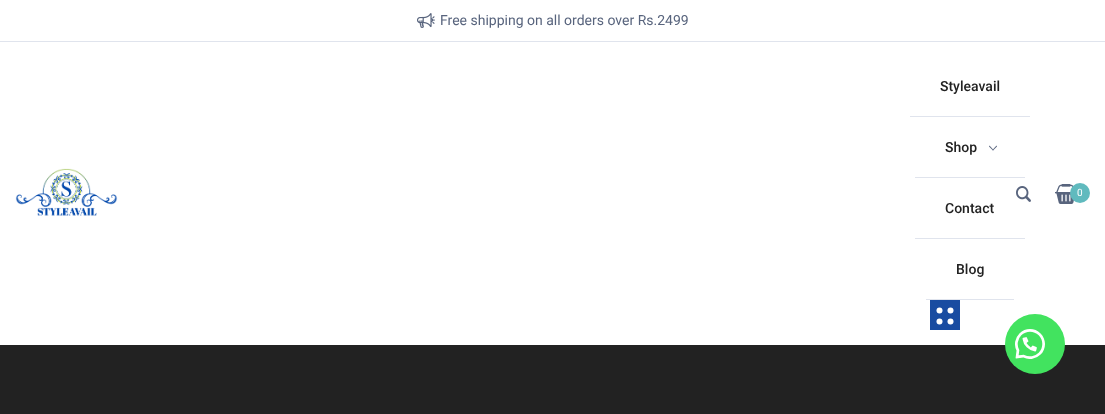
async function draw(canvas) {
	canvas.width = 1105;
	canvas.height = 414;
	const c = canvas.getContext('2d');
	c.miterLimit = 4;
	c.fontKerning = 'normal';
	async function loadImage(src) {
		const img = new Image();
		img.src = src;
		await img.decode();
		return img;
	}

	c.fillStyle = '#fff';
	c.fillRect(0, 0, 1105, 414);
	c.fillStyle = '#e0e4ed';
	c.fillRect(0, 41, 1105, 1);
	c.drawImage(await loadImage('img1.png'), 417, 13, 18, 15);
	c.font = '14px Roboto';
	c.fillStyle = '#58647d';
	c.fillText('Free shipping on all orders over Rs.2499', 440, 25);
	c.drawImage(await loadImage('img2.png'), 15, 168, 103, 48);
	c.fillStyle = '#e0e4ed';
	c.fillRect(910, 116, 120, 1);
	c.font = '500 14px Roboto';
	c.fillStyle = '#222';
	c.fillText('Styleavail', 940, 91);
	c.fillStyle = '#e0e4ed';
	c.fillRect(915, 177, 110, 1);
	c.fillStyle = '#222';
	c.fillText('Shop', 945, 152);
	c.fillStyle = '#58647d';
	c.beginPath();
	c.moveTo(996.5, 145.5);
	c.lineTo(997, 146.5);
	c.lineTo(993, 150.5);
	c.lineTo(992.5, 150);
	c.closePath();
	c.fill();
	c.beginPath();
	c.moveTo(989.5, 145.5);
	c.lineTo(993.5, 150);
	c.lineTo(993, 150.5);
	c.lineTo(989, 146.5);
	c.closePath();
	c.fill();
	c.fillStyle = '#e0e4ed';
	c.fillRect(915, 238, 110, 1);
	c.fillStyle = '#222';
	c.fillText('Contact', 945, 213);
	c.fillStyle = '#e0e4ed';
	c.fillRect(926, 299, 88, 1);
	c.fillStyle = '#222';
	c.fillText('Blog', 956, 274);
	c.fillStyle = '#194ca1';
	c.fillRect(930, 300, 30, 30);
	c.fillStyle = '#fff';
	c.beginPath();
	c.arc(939.5, 310.5, 3, 0, 2 * Math.PI);
	c.fill();
	c.beginPath();
	c.arc(950.5, 310.5, 3, 0, 2 * Math.PI);
	c.fill();
	c.beginPath();
	c.arc(939.5, 321.5, 3, 0, 2 * Math.PI);
	c.fill();
	c.beginPath();
	c.arc(950.5, 321.5, 3, 0, 2 * Math.PI);
	c.fill();
	c.drawImage(await loadImage('img3.png'), 1016, 186, 15, 16);
	c.drawImage(await loadImage('img4.png'), 1055, 184, 19, 20);
	c.fillStyle = '#60babe';
	c.beginPath();
	c.arc(1080, 193, 10, 0, 2 * Math.PI);
	c.fill();
	c.font = '10px Roboto';
	c.fillStyle = '#fff';
	c.fillText('0', 1077, 196);
	c.fillStyle = '#222';
	c.fillRect(0, 345, 1105, 69);
	c.fillStyle = '#42e35f';
	c.beginPath();
	c.arc(1035, 344, 30, 0, 2 * Math.PI);
	c.fill();
	c.drawImage(await loadImage('img5.png'), 1015, 329, 30, 30);
}

draw(document.querySelector('canvas'));
